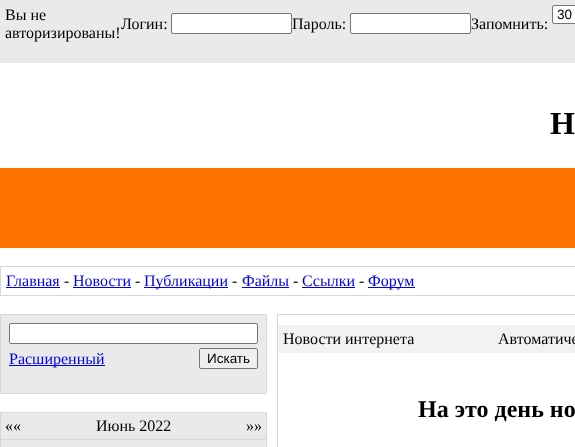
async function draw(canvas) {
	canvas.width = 575;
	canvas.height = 447;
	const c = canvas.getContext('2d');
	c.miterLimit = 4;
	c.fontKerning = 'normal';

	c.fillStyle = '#fff';
	c.fillRect(0, 0, 575, 447);
	c.fillStyle = '#eaeaea';
	c.fillRect(0, 0, 575, 63);
	c.font = '16px Liberation Serif';
	c.fillStyle = '#000';
	for (const [text, x, y] of [
		['Вы не', 5, 20],
		['авторизированы!', 5, 38],
		['Логин:', 121, 29],
	]) {
		c.fillText(text, x, y);
	}
	c.fillStyle = '#fff';
	c.beginPath();
	c.roundRect(171.5, 13.5, 120, 20, 1.5);
	c.fill();
	c.strokeStyle = '#767676';
	c.stroke();
	c.fillStyle = '#000';
	c.fillText('Пароль:', 292, 29);
	c.fillStyle = '#fff';
	c.beginPath();
	c.roundRect(350.5, 13.5, 120, 20, 1.5);
	c.fill();
	c.stroke();
	c.fillStyle = '#000';
	c.fillText('Запомнить:', 471, 29);
	c.fillStyle = '#fff';
	c.beginPath();
	c.roundRect(552.5, 5.5, 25, 18, 1.5);
	c.fill();
	c.stroke();
	c.font = '13.5px Liberation Sans';
	c.fillStyle = '#000';
	c.fillText('30', 557, 19);
	c.font = 'bold 32px Liberation Serif';
	c.fillText('Н', 550, 134);
	for (const [x, y, w, h, color] of [
		[0, 168, 575, 80, '#ff7300'],
		[0, 266, 575, 30, '#d7d7d7'],
		[1, 267, 574, 28, '#fff'],
	]) {
		c.fillStyle = color;
		c.fillRect(x, y, w, h);
	}
	c.font = '16px Liberation Serif';
	c.fillStyle = '#00e';
	c.fillText('Главная', 6, 286);
	c.fillRect(6, 287, 54, 1);
	c.fillStyle = '#000';
	c.fillText('-', 64, 286);
	c.fillStyle = '#00e';
	c.fillText('Новости', 73, 286);
	c.fillRect(73, 287, 58, 1);
	c.fillStyle = '#000';
	c.fillText('-', 135, 286);
	c.fillStyle = '#00e';
	c.fillRect(144, 287, 84, 1);
	c.fillText('Публикации', 144, 286);
	c.fillStyle = '#000';
	c.fillText('-', 232, 286);
	c.fillStyle = '#00e';
	c.fillText('Файлы', 242, 286);
	c.fillRect(242, 287, 47, 1);
	c.fillStyle = '#000';
	c.fillText('-', 293, 286);
	c.fillStyle = '#00e';
	c.fillText('Ссылки', 302, 286);
	c.fillRect(302, 287, 53, 1);
	c.fillStyle = '#000';
	c.fillText('-', 359, 286);
	c.fillStyle = '#00e';
	c.fillRect(368, 287, 47, 1);
	c.fillText('Форум', 368, 286);
	c.fillStyle = '#d7d7d7';
	c.fillRect(0, 314, 267, 80);
	c.fillStyle = '#eaeaea';
	c.fillRect(1, 315, 265, 78);
	c.fillStyle = '#fff';
	c.beginPath();
	c.roundRect(9.5, 323.5, 248, 20, 1.5);
	c.fill();
	c.stroke();
	c.fillStyle = '#00e';
	c.fillRect(9, 365, 96, 1);
	c.fillText('Расширенный', 9, 364);
	c.fillStyle = '#efefef';
	c.beginPath();
	c.roundRect(199.5, 348.5, 58, 20, 1.5);
	c.fill();
	c.stroke();
	c.font = '13.5px Liberation Sans';
	c.fillStyle = '#000';
	c.fillText('Искать', 207, 363);
	c.fillStyle = '#d7d7d7';
	c.fillRect(0, 412, 267, 35);
	c.fillStyle = '#eaeaea';
	c.fillRect(1, 413, 265, 26);
	c.font = '16px Liberation Serif';
	c.fillStyle = '#000';
	for (const [text, x, y] of [
		['««', 5, 431],
		['Июнь 2022', 96, 431],
		['»»', 246, 431],
	]) {
		c.fillText(text, x, y);
	}
	for (const [x, y, w, h, color] of [
		[1, 440, 265, 7, '#eaeaea'],
		[277, 314, 298, 133, '#d7d7d7'],
		[278, 315, 297, 132, '#fff'],
		[278, 325, 297, 28, '#f2f2f2'],
	]) {
		c.fillStyle = color;
		c.fillRect(x, y, w, h);
	}
	c.fillStyle = '#000';
	c.fillText('Новости интернета', 283, 344);
	c.fillText('Автоматиче', 498, 344);
	c.font = 'bold 24px Liberation Serif';
	c.fillText('На это день но', 418, 417);
}

draw(document.querySelector('canvas'));
